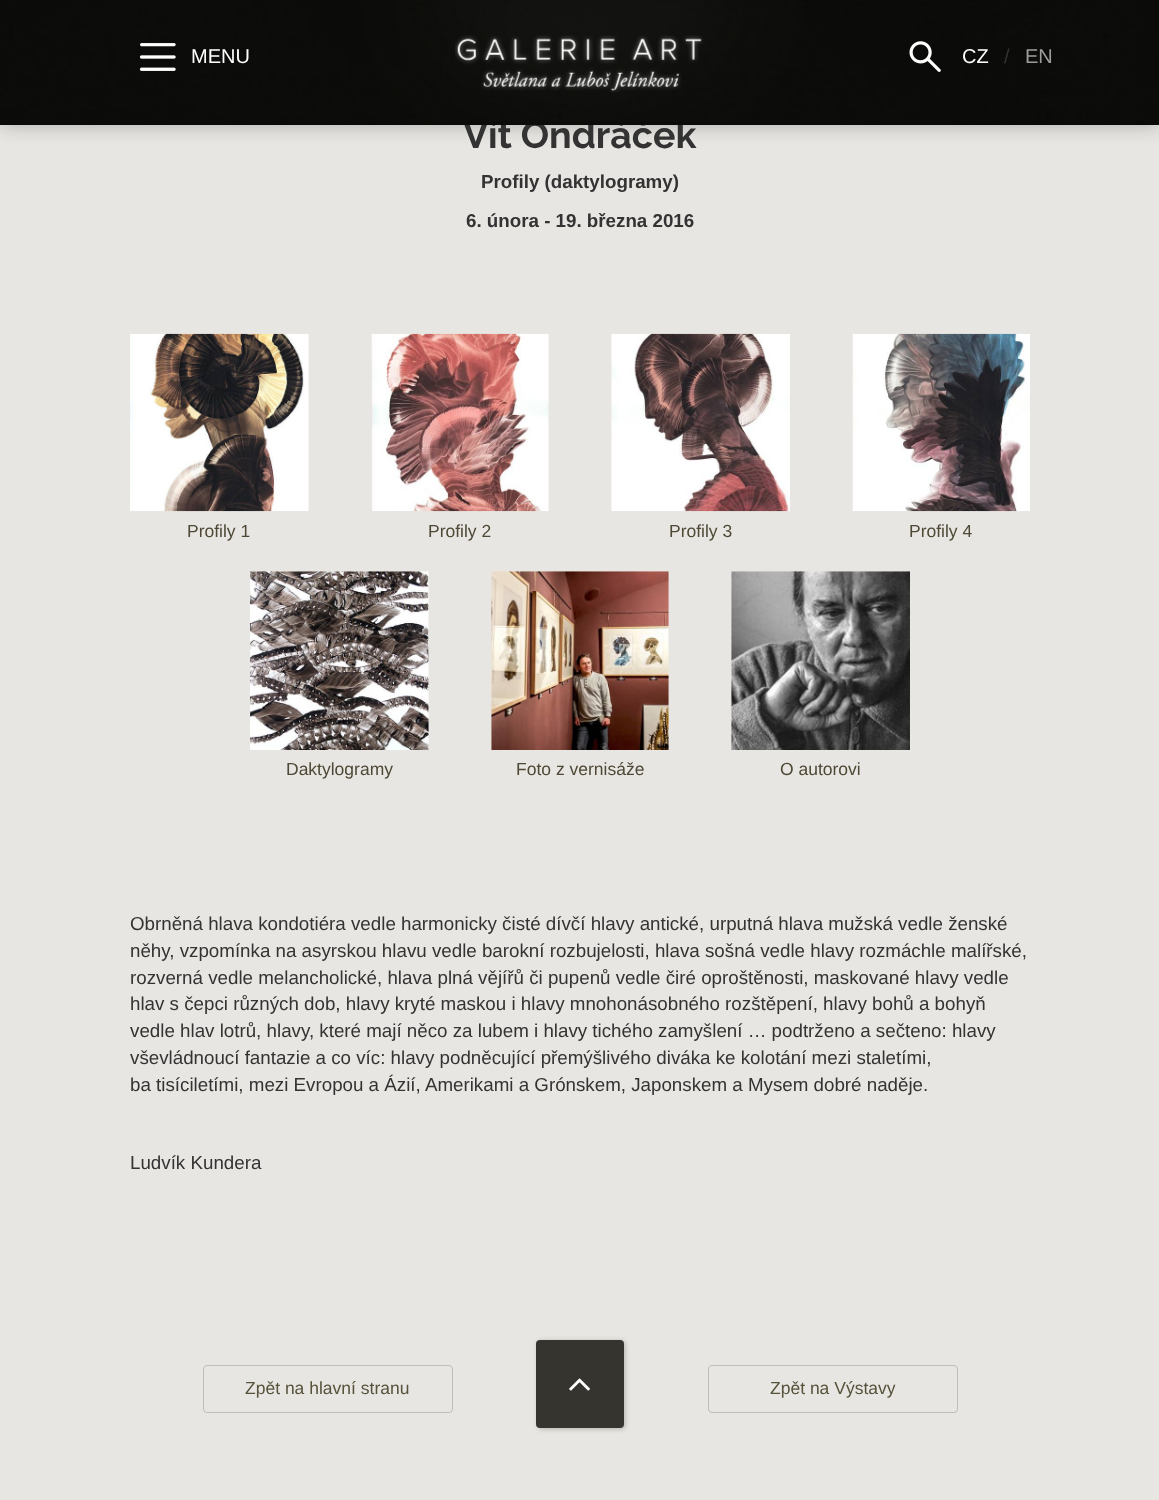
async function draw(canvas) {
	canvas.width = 1159;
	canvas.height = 1500;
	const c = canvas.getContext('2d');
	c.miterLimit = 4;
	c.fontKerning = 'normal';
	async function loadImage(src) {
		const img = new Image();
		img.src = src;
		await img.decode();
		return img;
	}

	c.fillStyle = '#e8e6e2';
	c.fillRect(0, 0, 1159, 1500);
	c.fillStyle = '#00000040';
	c.filter = 'blur(9.5px)';
	c.beginPath();
	c.rect(0, 0, 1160, 125);
	c.fill();
	c.filter = 'none';
	c.font = 'bold 37.5px Raleway';
	c.fillStyle = '#333';
	c.fillText('Vít Ondráček', 463, 148);
	c.drawImage(await loadImage('img1.png'), 0, 0, 1159, 125);
	c.drawImage(await loadImage('img2.png'), 139, 43, 37, 28);
	c.font = '20px Liberation Sans';
	c.fillStyle = '#fff';
	c.fillText('MENU', 191, 63);
	c.drawImage(await loadImage('img3.png'), 455, 35, 248, 58);
	c.drawImage(await loadImage('img4.png'), 909, 41, 32, 31);
	c.fillText('CZ', 962, 63);
	c.fillStyle = '#333';
	c.fillText('/', 1004, 63);
	c.fillStyle = '#9d9d9d';
	c.fillText('EN', 1025, 63);
	c.font = 'bold 18.75px Liberation Sans';
	c.fillStyle = '#333';
	c.fillText('Profily (daktylogramy)', 481, 188);
	c.fillText('6. února - 19. března 2016', 466, 227);
	c.drawImage(await loadImage('img5.png'), 130, 333, 179, 179);
	c.font = '17.5px Liberation Sans';
	c.fillStyle = '#4e4836';
	c.fillText('Profily 1', 187, 537);
	c.drawImage(await loadImage('img6.png'), 371, 333, 178, 179);
	c.fillText('Profily 2', 428, 537);
	c.drawImage(await loadImage('img7.png'), 611, 333, 179, 179);
	c.fillText('Profily 3', 669, 537);
	c.drawImage(await loadImage('img8.png'), 852, 333, 178, 179);
	c.fillText('Profily 4', 909, 537);
	c.drawImage(await loadImage('img9.png'), 250, 571, 179, 179);
	c.fillText('Daktylogramy', 286, 775);
	c.drawImage(await loadImage('img10.png'), 491, 571, 178, 179);
	c.fillText('Foto z vernisáže', 516, 775);
	c.drawImage(await loadImage('img11.png'), 731, 571, 179, 179);
	c.fillText('O autorovi', 780, 775);
	c.font = '18.75px Liberation Sans';
	c.fillStyle = '#333';
	for (const [text, x, y] of [
		['Obrněná hlava kondotiéra vedle harmonicky čisté dívčí hlavy antické, urputná hlava mužská vedle ženské', 130, 930],
		['něhy, vzpomínka na asyrskou hlavu vedle barokní rozbujelosti, hlava sošná vedle hlavy rozmáchle malířské,', 130, 957],
		['rozverná vedle melancholické, hlava plná vějířů či pupenů vedle čiré oproštěnosti, maskované hlavy vedle', 130, 984],
		['hlav s čepci různých dob, hlavy kryté maskou i hlavy mnohonásobného rozštěpení, hlavy bohů a bohyň', 130, 1010],
		['vedle hlav lotrů, hlavy, které mají něco za lubem i hlavy tichého zamyšlení … podtrženo a sečteno: hlavy', 130, 1037],
		['vševládnoucí fantazie a co víc: hlavy podněcující přemýšlivého diváka ke kolotání mezi staletími,', 130, 1064],
		['ba tisíciletími, mezi Evropou a Ázií, Amerikami a Grónskem, Japonskem a Mysem dobré naděje.', 130, 1091],
		['Ludvík Kundera', 130, 1169],
	]) {
		c.fillText(text, x, y);
	}
	c.beginPath();
	c.roundRect(203.5, 1365.5, 249, 47, 3.5);
	c.strokeStyle = '#bebdb8';
	c.stroke();
	c.font = '17.5px Liberation Sans';
	c.fillStyle = '#56523c';
	c.fillText('Zpět na hlavní stranu', 245, 1394);
	c.fillStyle = '#0000003b';
	c.filter = 'blur(2.5px)';
	c.beginPath();
	c.roundRect(538, 1341, 87, 88, 4);
	c.fill();
	c.filter = 'none';
	c.fillStyle = '#35342f';
	c.beginPath();
	c.roundRect(536, 1340, 88, 88, 4);
	c.fill();
	c.drawImage(await loadImage('img12.png'), 569, 1378, 21, 13);
	c.beginPath();
	c.roundRect(708.5, 1365.5, 249, 47, 3.5);
	c.stroke();
	c.fillStyle = '#56523c';
	c.fillText('Zpět na Výstavy', 770, 1394);
}

draw(document.querySelector('canvas'));
